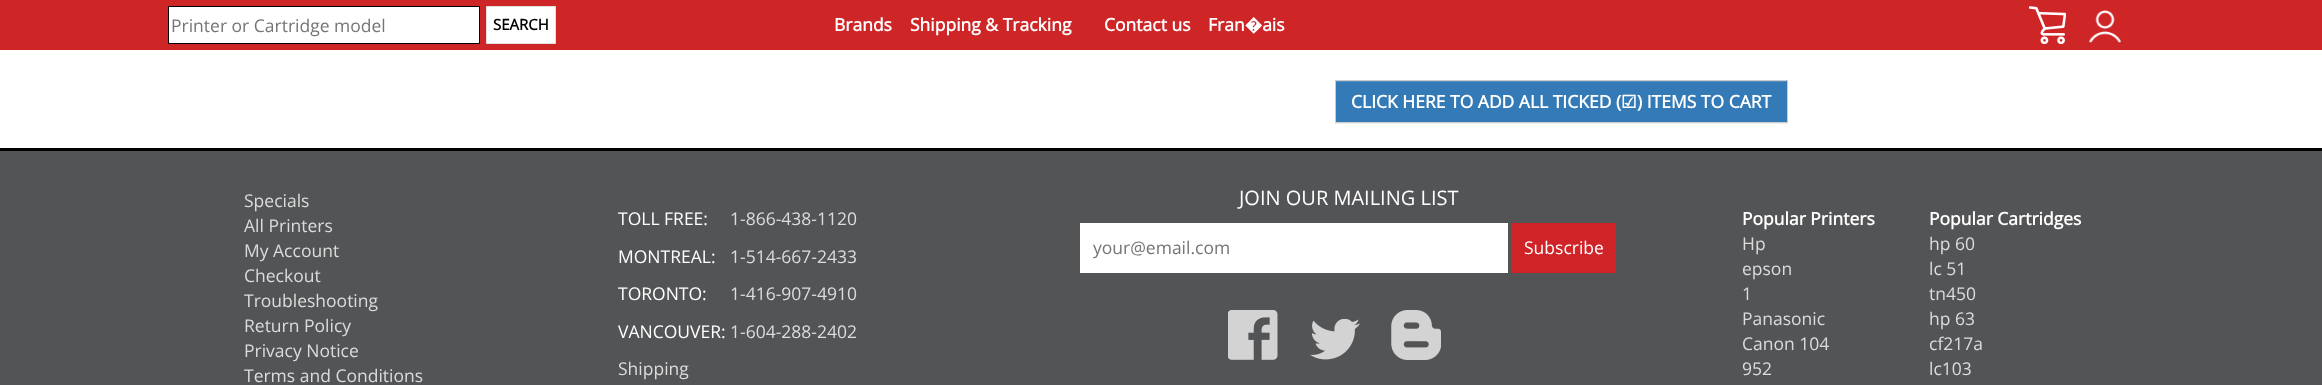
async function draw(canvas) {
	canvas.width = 2322;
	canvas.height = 385;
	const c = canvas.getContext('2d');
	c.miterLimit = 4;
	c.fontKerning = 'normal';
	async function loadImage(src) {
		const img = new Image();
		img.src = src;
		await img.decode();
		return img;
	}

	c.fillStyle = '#fff';
	c.fillRect(0, 0, 2322, 385);
	c.fillStyle = '#ce2527';
	c.fillRect(0, 0, 2322, 50);
	c.fillStyle = '#fff';
	c.beginPath();
	c.rect(168.5, 6.5, 311, 37);
	c.fill();
	c.strokeStyle = '#000';
	c.stroke();
	c.font = '17.5px Open Sans';
	c.fillStyle = '#757575';
	c.fillText('Printer or Cartridge model', 171, 32);
	c.fillStyle = '#fff';
	c.beginPath();
	c.rect(486.5, 6.5, 69, 37);
	c.fill();
	c.strokeStyle = '#e0e0e0';
	c.stroke();
	c.font = 'bold 15px Open Sans';
	c.fillStyle = '#000';
	c.fillText('SEARCH', 493, 30);
	c.font = 'bold 17.5px Open Sans';
	c.fillStyle = '#fff';
	for (const [text, x, y] of [
		['Brands', 834, 31],
		['Shipping & Tracking', 910, 31],
		['Contact us', 1104, 31],
		['Fran�ais', 1208, 31],
	]) {
		c.fillText(text, x, y);
	}
	c.drawImage(await loadImage('img1.png'), 2029, 6, 37, 38);
	c.drawImage(await loadImage('img2.png'), 2089, 10, 32, 33);
	c.fillStyle = '#00000012';
	c.filter = 'blur(0.5px)';
	c.beginPath();
	c.rect(1335, 81, 453, 43);
	c.fill();
	c.filter = 'none';
	c.fillStyle = '#337ab7';
	c.fillRect(1336, 81, 451, 41);
	c.fillStyle = '#528ec2';
	c.fillRect(1336, 81, 450, 1);
	c.strokeStyle = '#ccc';
	c.strokeRect(1335.5, 80.5, 452, 42);
	c.fillStyle = '#fff';
	c.fillText('CLICK HERE TO ADD ALL TICKED (', 1351, 108);
	c.font = 'bold 17.5px DejaVu Sans';
	c.fillText('☑', 1621, 108);
	c.font = 'bold 17.5px Open Sans';
	c.fillText(') ITEMS TO CART', 1637, 108);
	c.fillStyle = '#535456';
	c.fillRect(0, 151, 2322, 234);
	c.fillStyle = '#000';
	c.fillRect(0, 148, 2322, 3);
	c.font = '17.5px Open Sans';
	c.fillStyle = '#dcdcdc';
	for (const [text, x, y] of [
		['Specials', 244, 207],
		['All Printers', 244, 232],
		['My Account', 244, 257],
		['Checkout', 244, 282],
		['Troubleshooting', 244, 307],
		['Return Policy', 244, 332],
		['Privacy Notice', 244, 357],
		['Terms and Conditions', 244, 382],
	]) {
		c.fillText(text, x, y);
	}
	c.fillStyle = '#fff';
	c.fillText('TOLL FREE:', 618, 225);
	c.fillStyle = '#dcdcdc';
	c.fillText('1-866-438-1120', 730, 225);
	c.fillStyle = '#fff';
	c.fillText('MONTREAL:', 618, 263);
	c.fillStyle = '#dcdcdc';
	c.fillText('1-514-667-2433', 730, 263);
	c.fillStyle = '#fff';
	c.fillText('TORONTO:', 618, 300);
	c.fillStyle = '#dcdcdc';
	c.fillText('1-416-907-4910', 730, 300);
	c.fillStyle = '#fff';
	c.fillText('VANCOUVER:', 618, 338);
	c.fillStyle = '#dcdcdc';
	c.fillText('1-604-288-2402', 730, 338);
	c.fillText('Shipping', 618, 375);
	c.font = '20px Open Sans';
	c.fillStyle = '#fff';
	c.fillText('JOIN OUR MAILING LIST', 1239, 205);
	c.fillRect(1080, 223, 428, 50);
	c.font = '17.5px Open Sans';
	c.fillStyle = '#757575';
	c.fillText('your@email.com', 1093, 254);
	c.fillStyle = '#cf2327';
	c.fillRect(1511, 223, 105, 50);
	c.fillStyle = '#fff';
	c.fillText('Subscribe', 1524, 254);
	c.drawImage(await loadImage('img3.png'), 1228, 310, 50, 50);
	c.drawImage(await loadImage('img4.png'), 1310, 319, 50, 41);
	c.drawImage(await loadImage('img5.png'), 1391, 310, 50, 50);
	c.font = 'bold 17.5px Open Sans';
	c.fillText('Popular Printers', 1742, 225);
	c.font = '17.5px Open Sans';
	c.fillStyle = '#dcdcdc';
	for (const [text, x, y] of [
		['Hp', 1742, 250],
		['epson', 1742, 275],
		['1', 1742, 300],
		['Panasonic', 1742, 325],
		['Canon 104', 1742, 350],
		['952', 1742, 375],
	]) {
		c.fillText(text, x, y);
	}
	c.font = 'bold 17.5px Open Sans';
	c.fillStyle = '#fff';
	c.fillText('Popular Cartridges', 1929, 225);
	c.font = '17.5px Open Sans';
	c.fillStyle = '#dcdcdc';
	for (const [text, x, y] of [
		['hp 60', 1929, 250],
		['lc 51', 1929, 275],
		['tn450', 1929, 300],
		['hp 63', 1929, 325],
		['cf217a', 1929, 350],
		['lc103', 1929, 375],
	]) {
		c.fillText(text, x, y);
	}
}

draw(document.querySelector('canvas'));
